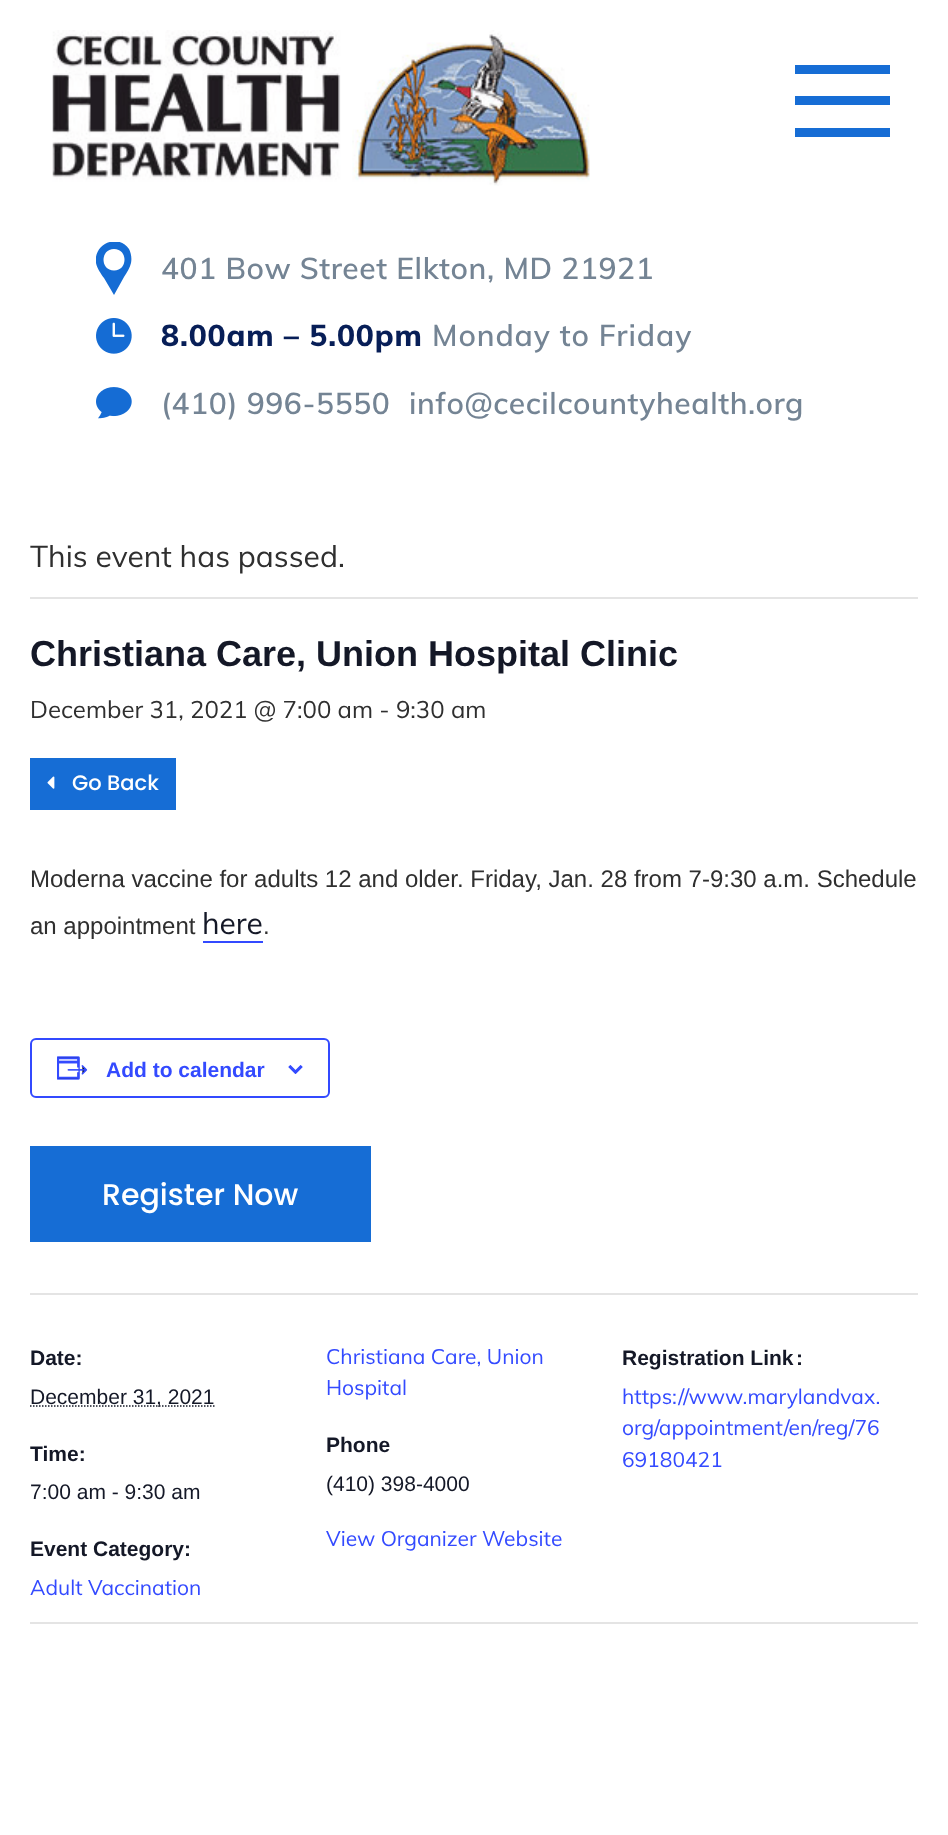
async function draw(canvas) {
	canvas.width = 948;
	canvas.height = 1835;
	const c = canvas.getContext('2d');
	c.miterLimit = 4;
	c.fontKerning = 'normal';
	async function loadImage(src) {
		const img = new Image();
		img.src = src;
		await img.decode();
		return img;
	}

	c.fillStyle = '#fff';
	c.fillRect(0, 0, 948, 1835);
	for (const [x, y, w, h, color] of [
		[795, 65, 95, 9, '#166dd5'],
		[795, 96, 95, 9, '#166dd5'],
		[795, 128, 95, 9, '#166dd5'],
	]) {
		c.fillStyle = color;
		c.fillRect(x, y, w, h);
	}
	c.drawImage(await loadImage('img1.png'), 52, 30, 538, 156);
	c.save();
	c.beginPath();
	c.rect(96, 242, 36, 54);
	c.clip();
	c.fillStyle = '#156cd4';
	c.beginPath();
	c.moveTo(114, 295);
	c.lineTo(124, 277);
	c.bezierCurveTo(127, 272, 130, 268, 131, 263);
	c.bezierCurveTo(132, 258, 131, 253, 129, 249);
	c.bezierCurveTo(118, 233, 93, 244, 96, 263);
	c.bezierCurveTo(97, 268, 101, 274, 104, 278);
	c.closePath();
	c.fill('evenodd');
	c.restore();
	c.fillStyle = '#fff';
	c.beginPath();
	c.moveTo(114, 270.5);
	c.bezierCurveTo(128, 270.5, 128, 249, 114, 249);
	c.bezierCurveTo(100, 249, 100, 270.5, 114, 270.5);
	c.closePath();
	c.fill('evenodd');
	c.letterSpacing = '0.6px';
	c.font = '600 30px Muli';
	c.fillStyle = '#748494';
	c.fillText('401 Bow Street Elkton, MD 21921', 161, 279);
	c.drawImage(await loadImage('img2.png'), 96, 318, 36, 36);
	c.letterSpacing = '0.9px';
	c.font = '800 30px Muli';
	c.fillStyle = '#071e57';
	c.fillText('8.00am – 5.00pm', 161, 346);
	c.font = '600 30px Muli';
	c.fillStyle = '#748494';
	c.fillText('Monday to Friday', 432, 346);
	c.drawImage(await loadImage('img3.png'), 96, 387, 36, 32);
	c.letterSpacing = '0.6px';
	c.fillText('(410) 996-5550', 161, 414);
	c.fillText('info@cecilcountyhealth.org', 409, 414);
	c.fillStyle = '#e4e4e4';
	c.fillRect(30, 597, 888, 2);
	c.letterSpacing = '0px';
	c.font = '30px Muli';
	c.fillStyle = '#2f2f2f';
	c.fillText('This event has passed.', 30, 567);
	c.font = 'bold 36px Liberation Sans';
	c.fillStyle = '#141827';
	c.fillText('Christiana Care, Union Hospital Clinic', 30, 666);
	c.font = '24px Muli';
	c.fillStyle = '#2f2f2f';
	c.fillText('December 31, 2021 @ 7:00 am - 9:30 am', 30, 718);
	c.fillStyle = '#166dd5';
	c.fillRect(30, 758, 146, 52);
	c.drawImage(await loadImage('img4.png'), 47, 776, 8, 13);
	c.font = '500 21px Poppins';
	c.fillStyle = '#fff';
	c.fillText('Go Back', 72, 790);
	c.font = '24px Liberation Sans';
	c.fillStyle = '#2f2f2f';
	c.fillText('Moderna vaccine for adults 12 and older. Friday, Jan. 28 from 7-9:30 a.m. Schedule', 30, 887);
	c.fillText('an appointment', 30, 934);
	c.font = '30px Muli';
	c.fillStyle = '#141827';
	c.fillText('here', 202, 934);
	c.fillStyle = '#334aff';
	c.fillRect(203, 941, 60, 2);
	c.font = '24px Liberation Sans';
	c.fillStyle = '#2f2f2f';
	c.fillText('.', 263, 934);
	c.beginPath();
	c.roundRect(31, 1039, 298, 58, 5);
	c.strokeStyle = '#334aff';
	c.lineWidth = 2;
	c.stroke();
	c.drawImage(await loadImage('img5.png'), 57, 1056, 31, 24);
	c.font = 'bold 21px Liberation Sans';
	c.fillStyle = '#334aff';
	c.fillText('Add to calendar', 106, 1077);
	c.drawImage(await loadImage('img6.png'), 288, 1065, 15, 9);
	c.fillStyle = '#166dd5';
	c.fillRect(30, 1146, 341, 96);
	c.font = '500 30px Poppins';
	c.fillStyle = '#fff';
	c.fillText('Register Now', 102, 1205);
	c.fillStyle = '#e4e4e4';
	c.fillRect(30, 1293, 888, 2);
	c.font = 'bold 21px Liberation Sans';
	c.fillStyle = '#141827';
	c.fillText('Date:', 30, 1365);
	c.beginPath();
	c.moveTo(30, 1406);
	c.lineTo(214.5, 1406);
	c.strokeStyle = '#141827';
	c.lineWidth = 1.5;
	c.setLineDash([1.5, 1.5]);
	c.stroke();
	c.font = '21px Liberation Sans';
	c.fillText('December 31, 2021', 30, 1404);
	c.font = 'bold 21px Liberation Sans';
	c.fillText('Time:', 30, 1461);
	c.font = '21px Liberation Sans';
	c.fillText('7:00 am - 9:30 am', 30, 1499);
	c.font = 'bold 21px Liberation Sans';
	c.fillText('Event Category:', 30, 1556);
	c.font = '21px Muli';
	c.fillStyle = '#334aff';
	for (const [text, x, y] of [
		['Adult Vaccination', 30, 1595],
		['Christiana Care, Union', 326, 1364],
		['Hospital', 326, 1395],
	]) {
		c.fillText(text, x, y);
	}
	c.font = 'bold 21px Liberation Sans';
	c.fillStyle = '#141827';
	c.fillText('Phone', 326, 1452);
	c.font = '21px Liberation Sans';
	c.fillText('(410) 398-4000', 326, 1491);
	c.font = '21px Muli';
	c.fillStyle = '#334aff';
	c.fillText('View Organizer Website', 326, 1546);
	c.font = 'bold 21px Liberation Sans';
	c.fillStyle = '#141827';
	c.fillText('Registration Link', 622, 1365);
	c.fillText(':', 796, 1365);
	c.font = '21px Muli';
	c.fillStyle = '#334aff';
	for (const [text, x, y] of [
		['https://www.marylandvax.', 622, 1404],
		['org/appointment/en/reg/76', 622, 1435],
		['69180421', 622, 1467],
	]) {
		c.fillText(text, x, y);
	}
	c.fillStyle = '#e4e4e4';
	c.fillRect(30, 1622, 888, 2);
}

draw(document.querySelector('canvas'));
